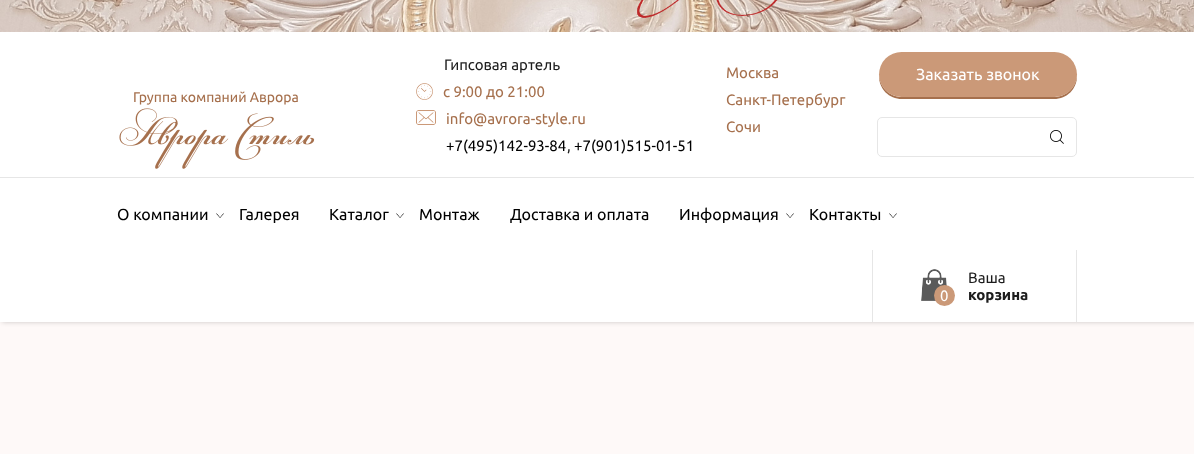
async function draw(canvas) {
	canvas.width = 1194;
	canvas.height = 454;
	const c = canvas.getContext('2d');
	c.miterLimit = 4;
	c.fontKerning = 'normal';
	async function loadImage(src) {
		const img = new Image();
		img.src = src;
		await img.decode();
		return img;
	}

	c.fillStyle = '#fef9f8';
	c.fillRect(0, 0, 1194, 454);
	c.fillStyle = '#00000033';
	c.filter = 'blur(2.5px)';
	c.beginPath();
	c.rect(2, 32, 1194, 290);
	c.fill();
	c.filter = 'none';
	c.drawImage(await loadImage('img1.png'), 0, 0, 1194, 32);
	c.fillStyle = '#fff';
	c.fillRect(0, 32, 1194, 290);
	c.fillStyle = '#e6e6e6';
	c.fillRect(0, 177, 1194, 1);
	c.font = '15px Ubuntu';
	c.fillStyle = '#1d1d1d';
	c.fillText('Гипсовая артель', 444, 70);
	c.drawImage(await loadImage('img2.png'), 416, 83, 17, 17);
	c.fillStyle = '#a6704d';
	c.fillText('с 9:00 до 21:00', 443, 97);
	c.drawImage(await loadImage('img3.png'), 416, 110, 20, 15);
	c.fillText('info@avrora-style.ru', 446, 124);
	c.fillStyle = '#000';
	c.fillText('+7(495)142-93-84', 446, 151);
	c.fillStyle = '#1d1d1d';
	c.fillText(',', 567, 151);
	c.fillStyle = '#000';
	c.fillText('+7(901)515-01-51', 574, 151);
	c.fillStyle = '#a6704d';
	for (const [text, x, y] of [
		['Москва', 726, 78],
		['Санкт-Петербург', 726, 105],
		['Сочи', 726, 132],
	]) {
		c.fillText(text, x, y);
	}
	c.beginPath();
	c.moveTo(879, 75);
	c.lineTo(879, 76);
	c.bezierCurveTo(879, 89, 889, 99, 902, 99);
	c.lineTo(1054, 99);
	c.bezierCurveTo(1067, 99, 1077, 89, 1077, 76);
	c.lineTo(1077, 75);
	c.bezierCurveTo(1076, 87, 1067, 97, 1054, 97);
	c.lineTo(902, 97);
	c.bezierCurveTo(889, 97, 880, 87, 879, 75);
	c.closePath();
	c.fill();
	c.fillStyle = '#cb9978';
	c.beginPath();
	c.roundRect(879, 52, 198, 45, 22.5);
	c.fill();
	c.font = '16px Ubuntu';
	c.fillStyle = '#fff';
	c.fillText('Заказать звонок', 916, 80);
	c.beginPath();
	c.roundRect(877.5, 117.5, 199, 39, 4.5);
	c.strokeStyle = '#e6e6e6';
	c.stroke();
	c.drawImage(await loadImage('img4.png'), 1050, 130, 14, 14);
	c.font = '14px Ubuntu';
	c.fillStyle = '#a6704d';
	c.fillText('Группа компаний Аврора', 133, 102);
	c.drawImage(await loadImage('img5.png'), 119, 108, 196, 61);
	c.font = '16px Ubuntu';
	c.fillStyle = '#000';
	c.fillText('О компании', 117, 220);
	c.drawImage(await loadImage('img6.png'), 216, 213, 8, 5);
	c.fillText('Галерея', 239, 220);
	c.fillText('Каталог', 329, 220);
	c.drawImage(await loadImage('img6.png'), 396, 213, 8, 5);
	for (const [text, x, y] of [
		['Монтаж', 419, 220],
		['Доставка и оплата', 510, 220],
		['Информация', 679, 220],
	]) {
		c.fillText(text, x, y);
	}
	c.drawImage(await loadImage('img6.png'), 786, 213, 8, 5);
	c.fillText('Контакты', 809, 220);
	c.drawImage(await loadImage('img6.png'), 889, 213, 8, 5);
	c.fillStyle = '#e6e6e6';
	c.fillRect(1076, 250, 1, 72);
	c.fillRect(872, 250, 1, 72);
	c.drawImage(await loadImage('img7.png'), 921, 269, 26, 32);
	c.fillStyle = '#cb9978';
	c.beginPath();
	c.arc(944.5, 295.5, 10.5, 0, 2 * Math.PI);
	c.fill();
	c.font = '15px Ubuntu';
	c.fillStyle = '#fff';
	c.fillText('0', 940, 301);
	c.fillStyle = '#1d1d1d';
	c.fillText('Ваша', 968, 283);
	c.font = 'bold 15px Ubuntu';
	c.fillText('корзина', 968, 300);
}

draw(document.querySelector('canvas'));
